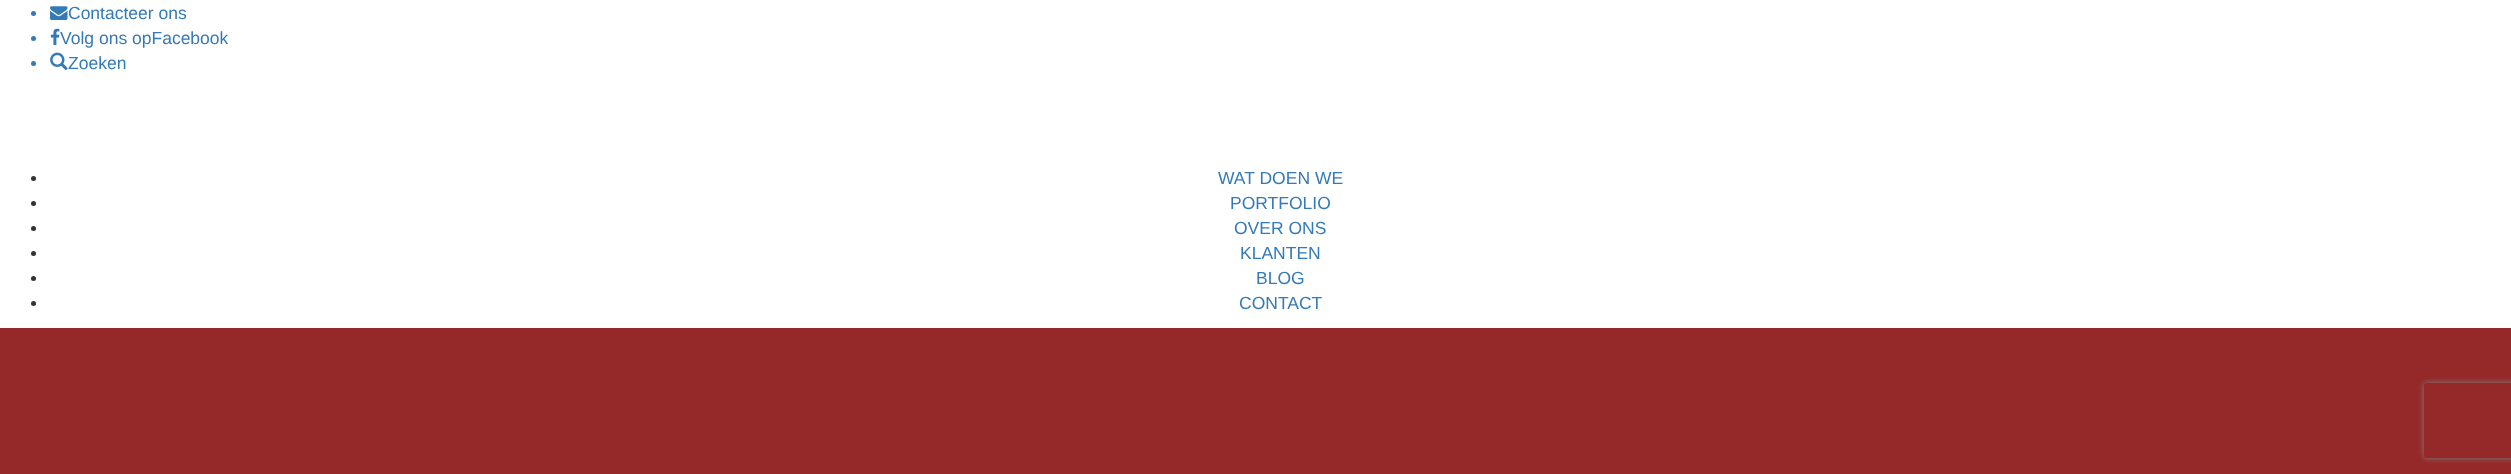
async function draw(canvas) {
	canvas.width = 2511;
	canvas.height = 474;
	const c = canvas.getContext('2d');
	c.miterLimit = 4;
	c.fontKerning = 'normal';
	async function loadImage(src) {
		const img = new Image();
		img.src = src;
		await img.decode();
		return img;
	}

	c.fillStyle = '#fff';
	c.fillRect(0, 0, 2511, 474);
	c.fillStyle = '#337ab7';
	c.beginPath();
	c.arc(33.5, 13.5, 2.5, 0, 2 * Math.PI);
	c.fill();
	c.drawImage(await loadImage('img1.png'), 50, 6, 18, 14);
	c.font = '17.5px Liberation Sans';
	c.fillText('Contacteer ons', 68, 19);
	c.beginPath();
	c.arc(33.5, 38.5, 2.5, 0, 2 * Math.PI);
	c.fill();
	c.drawImage(await loadImage('img2.png'), 50, 28, 10, 17);
	c.fillText('Volg ons opFacebook', 60, 44);
	c.beginPath();
	c.arc(33.5, 63.5, 2.5, 0, 2 * Math.PI);
	c.fill();
	c.drawImage(await loadImage('img3.png'), 50, 52, 18, 19);
	c.fillText('Zoeken', 68, 69);
	c.fillStyle = '#333';
	c.beginPath();
	c.arc(33.5, 178.5, 2.5, 0, 2 * Math.PI);
	c.fill();
	c.fillStyle = '#337ab7';
	c.fillText('WAT DOEN WE', 1218, 184);
	c.fillStyle = '#333';
	c.beginPath();
	c.arc(33.5, 203.5, 2.5, 0, 2 * Math.PI);
	c.fill();
	c.fillStyle = '#337ab7';
	c.fillText('PORTFOLIO', 1230, 209);
	c.fillStyle = '#333';
	c.beginPath();
	c.arc(33.5, 228.5, 2.5, 0, 2 * Math.PI);
	c.fill();
	c.fillStyle = '#337ab7';
	c.fillText('OVER ONS', 1234, 234);
	c.fillStyle = '#333';
	c.beginPath();
	c.arc(33.5, 253.5, 2.5, 0, 2 * Math.PI);
	c.fill();
	c.fillStyle = '#337ab7';
	c.fillText('KLANTEN', 1240, 259);
	c.fillStyle = '#333';
	c.beginPath();
	c.arc(33.5, 278.5, 2.5, 0, 2 * Math.PI);
	c.fill();
	c.fillStyle = '#337ab7';
	c.fillText('BLOG', 1256, 284);
	c.fillStyle = '#333';
	c.beginPath();
	c.arc(33.5, 303.5, 2.5, 0, 2 * Math.PI);
	c.fill();
	c.fillStyle = '#337ab7';
	c.fillText('CONTACT', 1239, 309);
	c.fillStyle = '#952828';
	c.fillRect(0, 328, 2511, 146);
	c.save();
	c.beginPath();
	c.moveTo(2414, 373);
	c.lineTo(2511, 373);
	c.lineTo(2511, 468);
	c.lineTo(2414, 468);
	c.closePath();
	c.moveTo(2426.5, 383);
	c.lineTo(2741.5, 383);
	c.bezierCurveTo(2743, 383, 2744, 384, 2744, 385.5);
	c.lineTo(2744, 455.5);
	c.bezierCurveTo(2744, 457, 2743, 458, 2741.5, 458);
	c.lineTo(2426.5, 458);
	c.bezierCurveTo(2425, 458, 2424, 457, 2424, 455.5);
	c.lineTo(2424, 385.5);
	c.bezierCurveTo(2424, 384, 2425, 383, 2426.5, 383);
	c.closePath();
	c.clip('evenodd');
	c.fillStyle = '#808080';
	c.filter = 'blur(3px)';
	c.beginPath();
	c.roundRect(2424, 383, 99, 75, 2.5);
	c.fill();
	c.filter = 'none';
	c.restore();
}

draw(document.querySelector('canvas'));
